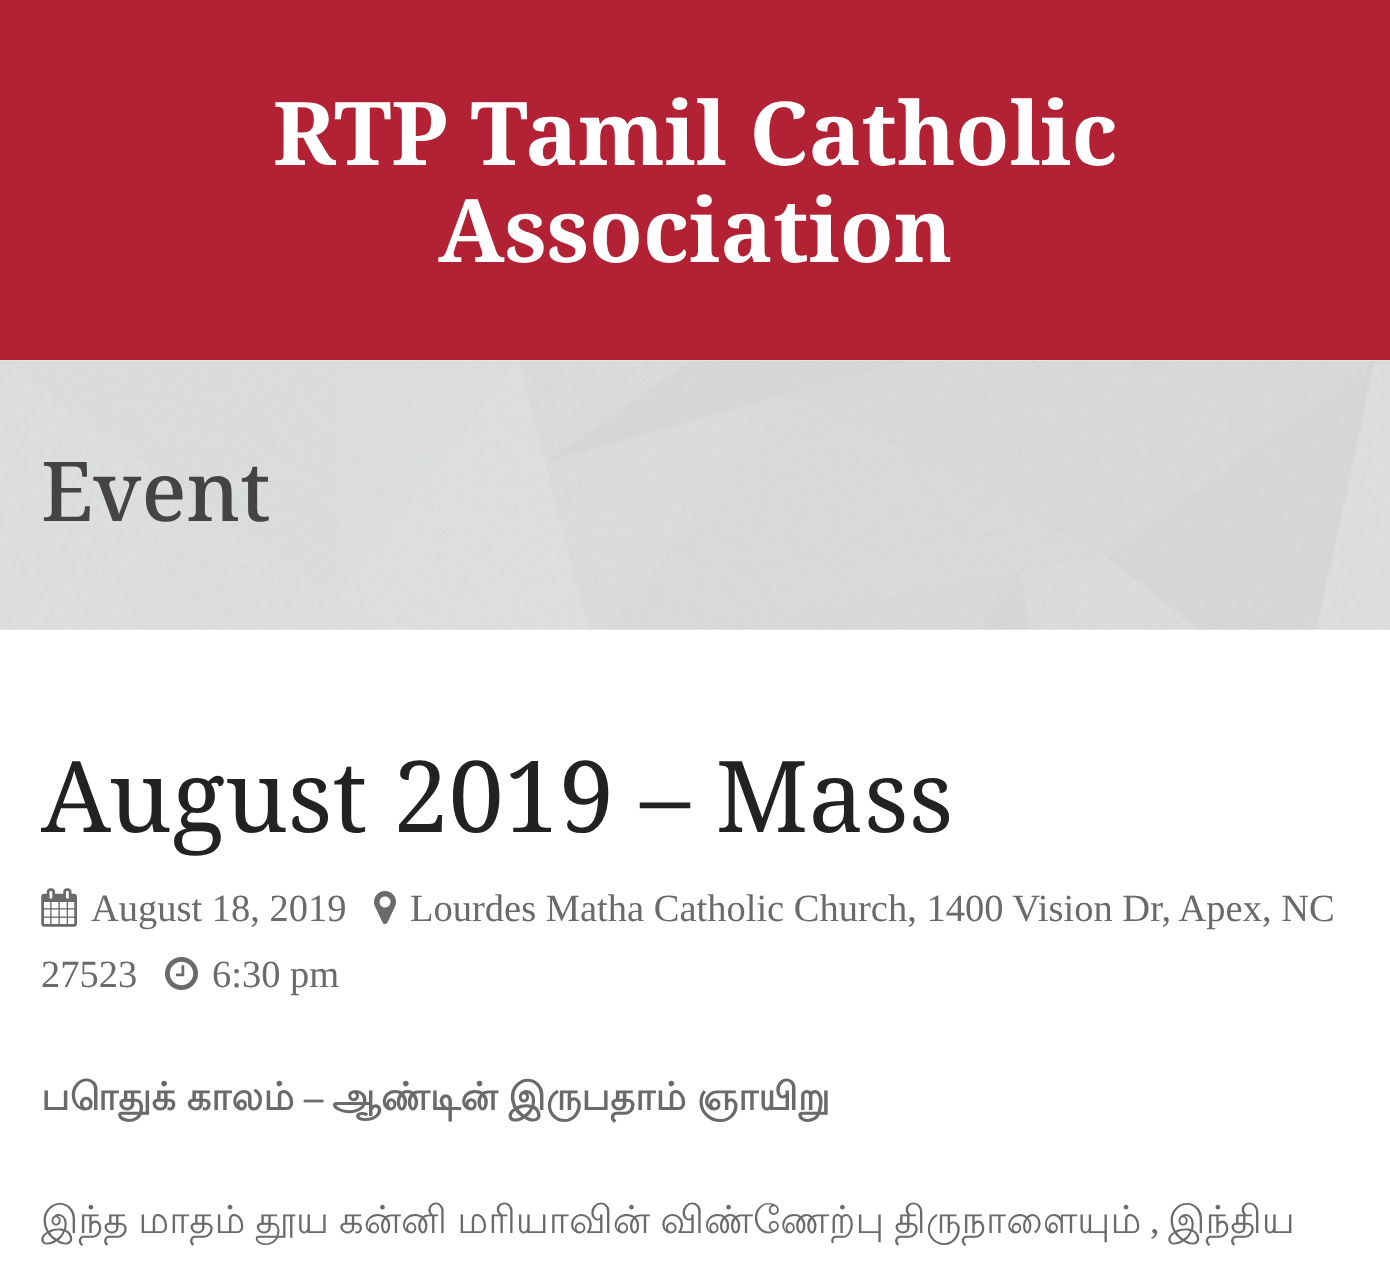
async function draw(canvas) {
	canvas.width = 1390;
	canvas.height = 1270;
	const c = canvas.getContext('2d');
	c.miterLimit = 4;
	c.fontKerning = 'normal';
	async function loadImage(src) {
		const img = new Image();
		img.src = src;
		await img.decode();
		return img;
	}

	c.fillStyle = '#b22234';
	c.fillRect(0, 0, 1390, 1270);
	c.font = 'bold 88px Noto Serif';
	c.fillStyle = '#fff';
	c.fillText('RTP Tamil Catholic', 273, 165);
	c.fillText('Association', 438, 262);
	c.fillRect(0, 360, 1390, 910);
	c.drawImage(await loadImage('img1.png'), 0, 360, 1390, 270);
	c.font = '500 82.5px Noto Serif';
	c.fillStyle = '#444';
	c.fillText('Event', 41, 521);
	c.font = '99px Noto Serif';
	c.fillStyle = '#222';
	c.fillText('August 2019 – Mass', 41, 832);
	c.drawImage(await loadImage('img2.png'), 374, 891, 22, 33);
	c.font = '38.5px Liberation Serif';
	c.fillStyle = '#6a6a6a';
	c.fillText('Lourdes Matha Catholic Church, 1400 Vision Dr, Apex, NC', 410, 921);
	c.fillText('27523', 41, 987);
	c.drawImage(await loadImage('img3.png'), 41, 888, 36, 39);
	c.fillText('August 18, 2019', 91, 921);
	c.drawImage(await loadImage('img4.png'), 165, 957, 33, 33);
	c.fillText('6:30 pm', 212, 987);
	c.wordSpacing = '-1px';
	c.font = 'bold 38.5px Lohit Tamil';
	c.fillText('பொதுக் காலம்', 41, 1110);
	c.wordSpacing = '0px';
	c.font = 'bold 38.5px Liberation Serif';
	c.fillText('–', 304, 1110);
	c.wordSpacing = '-1px';
	c.font = 'bold 38.5px Lohit Tamil';
	c.fillText('ஆண்டின் இருபதாம் ஞாயிறு', 332, 1110);
	c.wordSpacing = '-1.5px';
	c.font = '38.5px Lohit Tamil';
	c.fillText('இந்த மாதம் தூய கன்னி மரியாவின் விண்ணேற்பு திருநாளையும்', 41, 1233);
	c.wordSpacing = '0px';
	c.font = '38.5px Liberation Serif';
	c.fillText(',', 1150, 1233);
	c.font = '38.5px Lohit Tamil';
	c.fillText('இந்திய', 1168, 1233);
}

draw(document.querySelector('canvas'));
